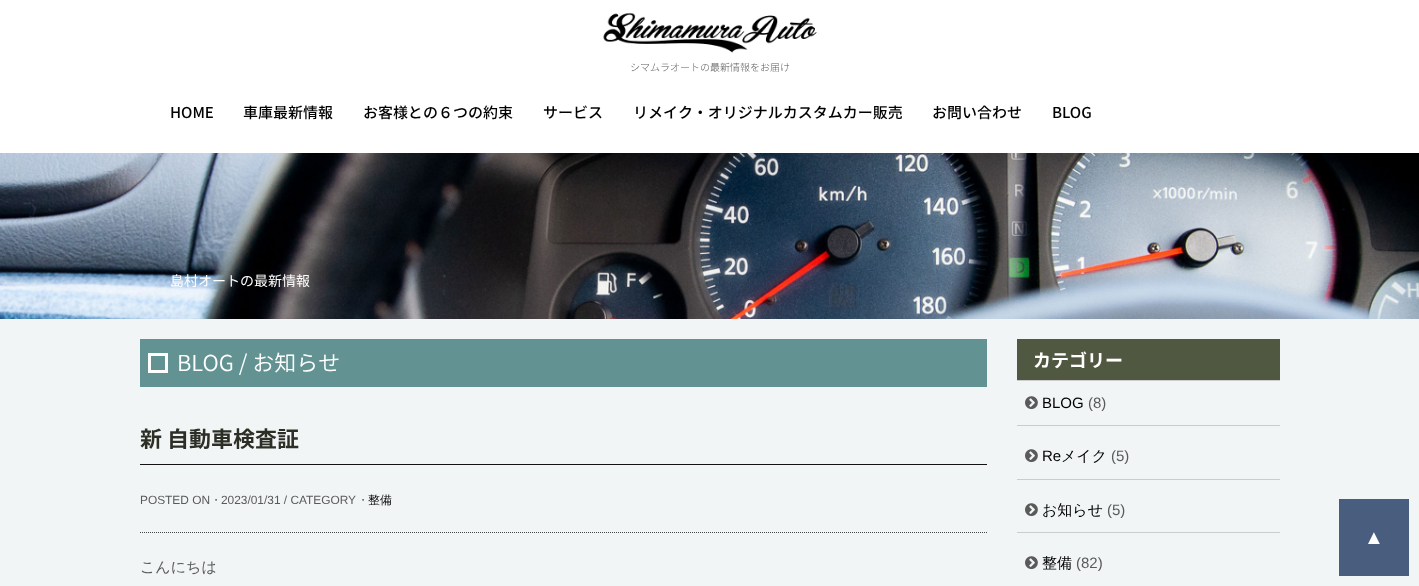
async function draw(canvas) {
	canvas.width = 1419;
	canvas.height = 586;
	const c = canvas.getContext('2d');
	c.miterLimit = 4;
	c.fontKerning = 'normal';
	async function loadImage(src) {
		const img = new Image();
		img.src = src;
		await img.decode();
		return img;
	}

	c.fillStyle = '#fff';
	c.fillRect(0, 0, 1419, 586);
	c.drawImage(await loadImage('img1.png'), 603, 12, 214, 41);
	c.font = '300 10px Noto Sans JP';
	c.fillStyle = '#5a5a5a';
	c.fillText('シマムラオートの最新情報をお届け', 630, 71);
	c.font = '500 15px Noto Sans JP';
	c.fillStyle = '#000';
	for (const [text, x, y] of [
		['HOME', 170, 118],
		['車庫最新情報', 243, 118],
		['お客様との６つの約束', 363, 118],
		['サービス', 543, 118],
		['リメイク・オリジナルカスタムカー販売', 633, 118],
		['お問い合わせ', 932, 118],
		['BLOG', 1052, 118],
	]) {
		c.fillText(text, x, y);
	}
	c.drawImage(await loadImage('img2.png'), 0, 153, 1419, 166);
	c.font = '14px Noto Sans JP';
	c.fillStyle = '#fff';
	c.fillText('島村オートの最新情報', 170, 286);
	c.fillStyle = '#f2f5f6';
	c.fillRect(0, 319, 1419, 267);
	c.fillStyle = '#639293';
	c.fillRect(140, 339, 847, 48);
	c.strokeStyle = '#fff';
	c.lineWidth = 3;
	c.strokeRect(149.5, 354.5, 17, 17);
	c.font = '300 22px "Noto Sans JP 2"';
	c.fillStyle = '#fff';
	c.fillText('BLOG / お知らせ', 177, 371);
	c.fillStyle = '#121212';
	c.fillRect(140, 464, 847, 1);
	c.font = 'bold 22px Noto Sans JP';
	c.fillStyle = '#2b2f26';
	c.fillText('新 自動車検査証', 140, 447);
	c.font = '11.9px Liberation Sans';
	c.fillStyle = '#5a5a5a';
	c.fillText('POSTED ON', 140, 504);
	c.font = '500 11.9px WenQuanYi Zen Hei';
	c.fillText('・', 210, 504);
	c.font = '11.9px Liberation Sans';
	c.fillText('2023/01/31 / CATEGORY', 221, 504);
	c.font = '500 11.9px WenQuanYi Zen Hei';
	c.fillText('・', 357, 504);
	c.fillStyle = '#000';
	c.fillText('整備', 368, 504);
	c.beginPath();
	c.moveTo(140, 532.5);
	c.lineTo(987, 532.5);
	c.strokeStyle = '#454545';
	c.lineWidth = 1;
	c.setLineDash([1, 1]);
	c.stroke();
	c.font = '500 15px WenQuanYi Zen Hei';
	c.fillStyle = '#5a5a5a';
	c.fillText('こんにちは', 140, 572);
	c.fillStyle = '#515841';
	c.fillRect(1017, 339, 263, 41);
	c.fillStyle = '#ccc';
	c.fillRect(1017, 380, 263, 1);
	c.font = 'bold 18px Noto Sans JP';
	c.fillStyle = '#fff';
	c.fillText('カテゴリー', 1033, 367);
	c.fillStyle = '#ccc';
	c.fillRect(1017, 425, 263, 1);
	c.drawImage(await loadImage('img3.png'), 1025, 396, 13, 14);
	c.font = '15px Liberation Sans';
	c.fillStyle = '#000';
	c.fillText('BLOG', 1042, 408);
	c.fillStyle = '#5a5a5a';
	c.fillText('(8)', 1088, 408);
	c.fillStyle = '#ccc';
	c.fillRect(1017, 479, 263, 1);
	c.drawImage(await loadImage('img3.png'), 1025, 449, 13, 14);
	c.fillStyle = '#000';
	c.fillText('Re', 1042, 461);
	c.font = '500 15px WenQuanYi Zen Hei';
	c.fillText('メイク', 1061, 461);
	c.font = '15px Liberation Sans';
	c.fillStyle = '#5a5a5a';
	c.fillText('(5)', 1111, 461);
	c.fillStyle = '#ccc';
	c.fillRect(1017, 532, 263, 1);
	c.drawImage(await loadImage('img3.png'), 1025, 503, 13, 14);
	c.font = '500 15px WenQuanYi Zen Hei';
	c.fillStyle = '#000';
	c.fillText('お知らせ', 1042, 515);
	c.font = '15px Liberation Sans';
	c.fillStyle = '#5a5a5a';
	c.fillText('(5)', 1107, 515);
	c.drawImage(await loadImage('img3.png'), 1025, 556, 13, 14);
	c.font = '500 15px WenQuanYi Zen Hei';
	c.fillStyle = '#000';
	c.fillText('整備', 1042, 568);
	c.font = '15px Liberation Sans';
	c.fillStyle = '#5a5a5a';
	c.fillText('(82)', 1076, 568);
	c.fillStyle = '#495e7f';
	c.fillRect(1339, 499, 70, 77);
	c.font = '20px Liberation Sans';
	c.fillStyle = '#fff';
	c.fillText('▲', 1364, 544);
}

draw(document.querySelector('canvas'));
